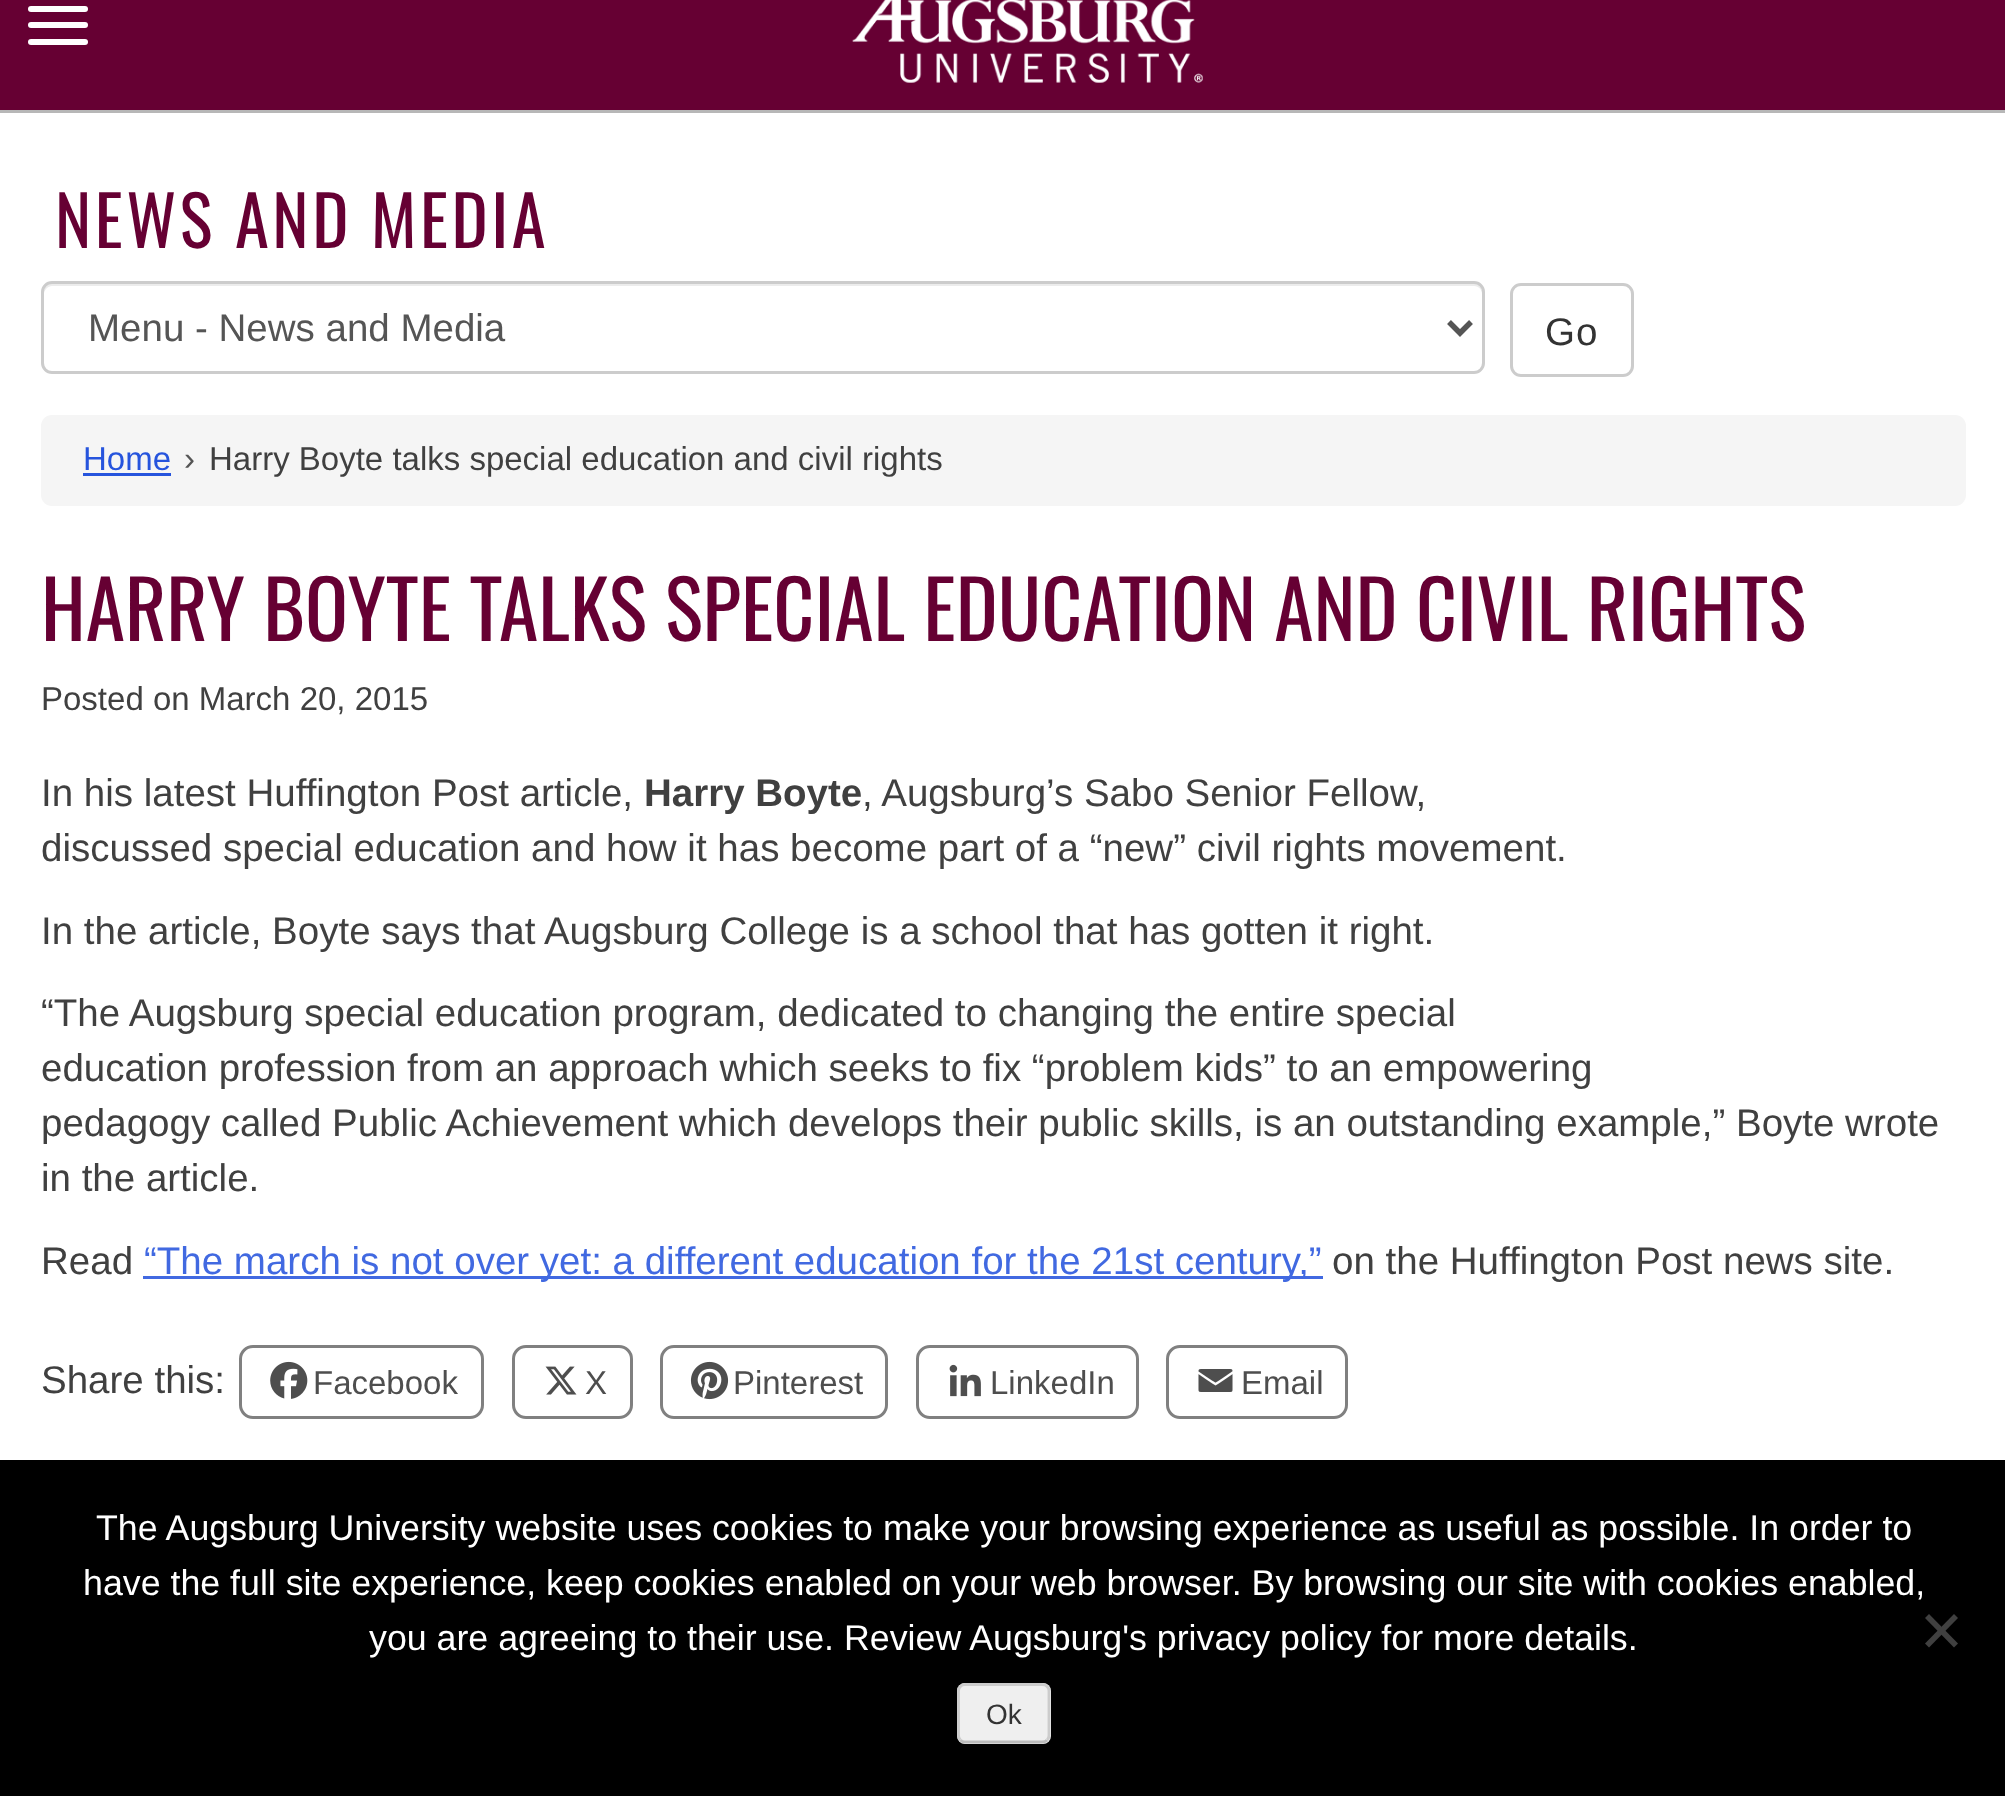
async function draw(canvas) {
	canvas.width = 2005;
	canvas.height = 1796;
	const c = canvas.getContext('2d');
	c.miterLimit = 4;
	c.fontKerning = 'normal';
	async function loadImage(src) {
		const img = new Image();
		img.src = src;
		await img.decode();
		return img;
	}

	c.fillStyle = '#fff';
	c.fillRect(0, 0, 2005, 1796);
	c.fillStyle = '#603';
	c.fillRect(0, 0, 2005, 110);
	c.fillStyle = '#b7b7b7';
	c.fillRect(0, 110, 2005, 3);
	c.fillStyle = '#fff';
	c.beginPath();
	c.roundRect(28, 6, 60, 6, 3);
	c.fill();
	c.beginPath();
	c.roundRect(28, 22, 60, 6, 3);
	c.fill();
	c.beginPath();
	c.roundRect(28, 39, 60, 6, 3);
	c.fill();
	c.drawImage(await loadImage('img1.png'), 852, 0, 351, 83);
	c.letterSpacing = '3.5px';
	c.font = '68.75px Oswald';
	c.fillStyle = '#603';
	c.fillText('NEWS AND MEDIA', 55, 248);
	c.fillStyle = '#ececec';
	c.beginPath();
	c.moveTo(52, 286);
	c.lineTo(1474, 286);
	c.bezierCurveTo(1479, 286, 1482, 290, 1482, 294);
	c.lineTo(1482, 291);
	c.bezierCurveTo(1482, 287, 1478, 283, 1474, 283);
	c.lineTo(52, 283);
	c.bezierCurveTo(48, 283, 44, 287, 44, 291);
	c.lineTo(44, 294);
	c.bezierCurveTo(44, 290, 48, 286, 52, 286);
	c.closePath();
	c.fill();
	c.beginPath();
	c.roundRect(42.5, 282.5, 1441, 90, 9.5);
	c.strokeStyle = '#ccc';
	c.lineWidth = 3;
	c.stroke();
	c.beginPath();
	c.moveTo(1449, 322);
	c.lineTo(1460, 333);
	c.lineTo(1471, 322);
	c.strokeStyle = '#555';
	c.lineWidth = 5.5;
	c.stroke();
	c.letterSpacing = '0px';
	c.font = '38.5px Liberation Sans';
	c.fillStyle = '#555';
	c.fillText('Menu - News and Media', 88, 341);
	c.beginPath();
	c.roundRect(1511.5, 284.5, 121, 91, 9.5);
	c.strokeStyle = '#ccc';
	c.lineWidth = 3;
	c.stroke();
	c.letterSpacing = '1px';
	c.fillStyle = '#333';
	c.fillText('Go', 1545, 345);
	c.fillStyle = '#f5f5f5';
	c.beginPath();
	c.roundRect(41, 415, 1925, 91, 11);
	c.fill();
	c.letterSpacing = '0px';
	c.font = '33px Liberation Sans';
	c.fillStyle = '#2654dd';
	c.fillText('Home', 83, 470);
	c.fillRect(83, 473, 88, 3);
	c.fillStyle = '#555';
	c.fillText('›', 184, 470);
	c.fillStyle = '#404040';
	c.fillText('Harry Boyte talks special education and civil rights', 209, 470);
	c.font = '79.75px Oswald';
	c.fillStyle = '#603';
	c.fillText('HARRY BOYTE TALKS SPECIAL EDUCATION AND CIVIL RIGHTS', 41, 641);
	c.font = '33px Liberation Sans';
	c.fillStyle = '#404040';
	c.fillText('Posted on March 20, 2015', 41, 710);
	c.font = '38.5px Liberation Sans';
	c.fillText('In his latest Huffington Post article,', 41, 806);
	c.font = 'bold 38.5px Liberation Sans';
	c.fillText('Harry Boyte', 644, 806);
	c.font = '38.5px Liberation Sans';
	for (const [text, x, y] of [
		[', Augsburg’s Sabo Senior Fellow,', 862, 806],
		['discussed special education and how it has become part of a “new” civil rights movement.', 41, 861],
		['In the article, Boyte says that Augsburg College is a school that has gotten it right.', 41, 944],
		['“The Augsburg special education program, dedicated to changing the entire special', 41, 1026],
		['education profession from an approach which seeks to fix “problem kids” to an empowering', 41, 1081],
		['pedagogy called Public Achievement which develops their public skills, is an outstanding example,” Boyte wrote', 41, 1136],
		['in the article.', 41, 1191],
		['Read', 41, 1274],
	]) {
		c.fillText(text, x, y);
	}
	c.fillStyle = '#4169e1';
	c.fillRect(143, 1276, 1180, 3);
	c.fillText('“The march is not over yet: a different education for the 21st century,”', 144, 1274);
	c.fillStyle = '#404040';
	c.fillText('on the Huffington Post news site.', 1332, 1274);
	c.fillText('Share this:', 41, 1393);
	c.beginPath();
	c.roundRect(240.5, 1346.5, 242, 71, 12.5);
	c.strokeStyle = '#808080';
	c.stroke();
	c.drawImage(await loadImage('img2.png'), 270, 1361, 38, 38);
	c.font = '33px Liberation Sans';
	c.fillStyle = '#4e4e4e';
	c.fillText('Facebook', 313, 1394);
	c.beginPath();
	c.roundRect(513.5, 1346.5, 118, 71, 12.5);
	c.stroke();
	c.drawImage(await loadImage('img3.png'), 545, 1366, 32, 29);
	c.fillText('X', 585, 1394);
	c.beginPath();
	c.roundRect(661.5, 1346.5, 225, 71, 12.5);
	c.stroke();
	c.drawImage(await loadImage('img4.png'), 690, 1361, 39, 39);
	c.fillText('Pinterest', 733, 1394);
	c.beginPath();
	c.roundRect(917.5, 1346.5, 220, 71, 12.5);
	c.stroke();
	c.drawImage(await loadImage('img5.png'), 949, 1364, 32, 33);
	c.fillText('LinkedIn', 990, 1394);
	c.beginPath();
	c.roundRect(1167.5, 1346.5, 179, 71, 12.5);
	c.stroke();
	c.drawImage(await loadImage('img6.png'), 1198, 1369, 35, 23);
	c.fillText('Email', 1241, 1394);
	c.fillStyle = '#000';
	c.fillRect(0, 1460, 2005, 336);
	c.font = '35.75px Liberation Sans';
	c.fillStyle = '#fff';
	for (const [text, x, y] of [
		['The Augsburg University website uses cookies to make your browsing experience as useful as possible. In order to', 96, 1540],
		['have the full site experience, keep cookies enabled on your web browser. By browsing our site with cookies enabled,', 83, 1595],
		['you are agreeing to their use. Review Augsburg\'s privacy policy for more details.', 369, 1650],
	]) {
		c.fillText(text, x, y);
	}
	c.fillStyle = '#404040';
	c.beginPath();
	c.moveTo(1954, 1614);
	c.lineTo(1958, 1618);
	c.lineTo(1929, 1647.5);
	c.lineTo(1925, 1643.5);
	c.closePath();
	c.fill();
	c.beginPath();
	c.moveTo(1925, 1618);
	c.lineTo(1929, 1614);
	c.lineTo(1958, 1643.5);
	c.lineTo(1954, 1647.5);
	c.closePath();
	c.fill();
	c.fillStyle = '#efefef';
	c.beginPath();
	c.roundRect(957, 1683, 94, 61, 8);
	c.fill();
	c.beginPath();
	c.moveTo(1047, 1740);
	c.bezierCurveTo(1046, 1741.5, 1044, 1742, 1042, 1742);
	c.lineTo(965, 1742);
	c.bezierCurveTo(963.5, 1742, 961.5, 1741.5, 960.5, 1740);
	c.strokeStyle = '#bbb';
	c.lineWidth = 2.8;
	c.stroke();
	c.beginPath();
	c.moveTo(960.5, 1740);
	c.bezierCurveTo(959, 1739, 958.5, 1737, 958.5, 1735);
	c.lineTo(958.5, 1691);
	c.bezierCurveTo(958.5, 1689.5, 959, 1687.5, 960.5, 1686.5);
	c.bezierCurveTo(961.5, 1685, 963.5, 1684.5, 965, 1684.5);
	c.lineTo(1042, 1684.5);
	c.bezierCurveTo(1044, 1684.5, 1046, 1685, 1047, 1686.5);
	c.bezierCurveTo(1048.5, 1687.5, 1049, 1689.5, 1049, 1691);
	c.lineTo(1049, 1735);
	c.bezierCurveTo(1049, 1737, 1048.5, 1739, 1047, 1740);
	c.strokeStyle = '#ccc';
	c.stroke();
	c.font = '28px Liberation Sans';
	c.fillStyle = '#333';
	c.fillText('Ok', 986, 1724);
}

draw(document.querySelector('canvas'));
